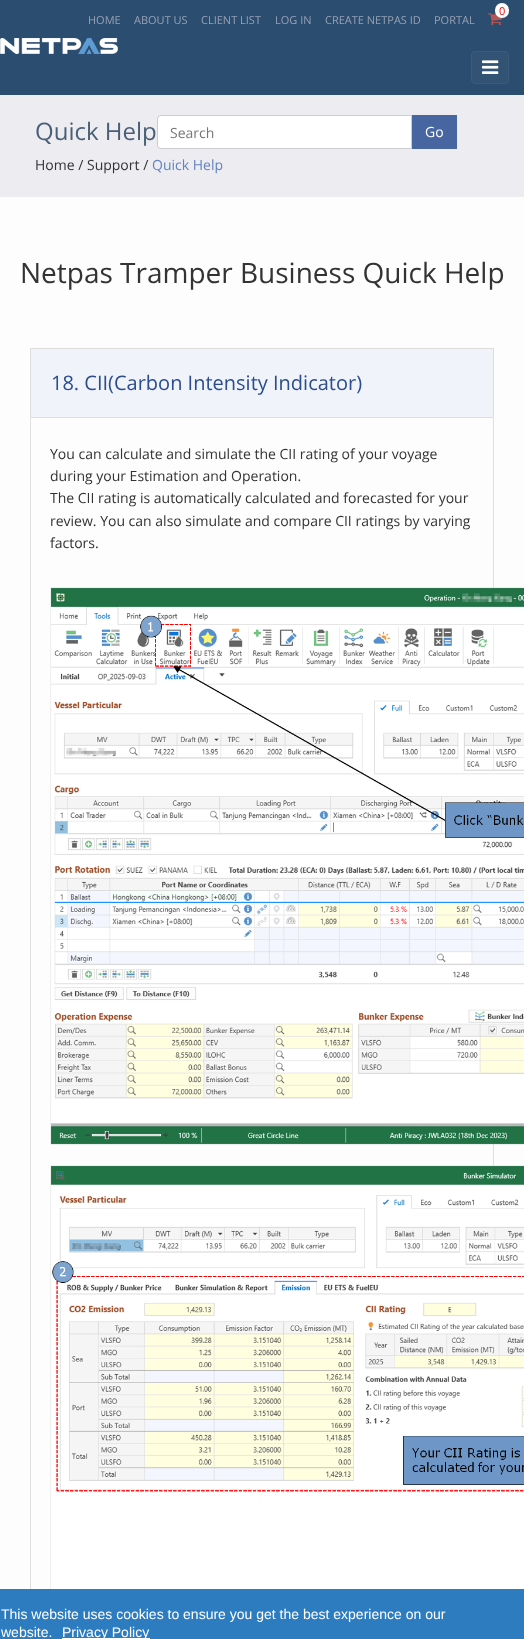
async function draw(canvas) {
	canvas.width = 524;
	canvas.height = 1639;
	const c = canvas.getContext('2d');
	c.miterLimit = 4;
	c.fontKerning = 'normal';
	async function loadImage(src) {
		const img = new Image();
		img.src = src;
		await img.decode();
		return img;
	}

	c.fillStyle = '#fdfdfd';
	c.fillRect(0, 0, 524, 1639);
	c.fillStyle = '#2b4d70';
	c.fillRect(0, 0, 524, 95);
	c.drawImage(await loadImage('img1.png'), 488, 13, 14, 12);
	c.fillStyle = '#fff';
	c.beginPath();
	c.roundRect(495, 3, 14, 15, 7);
	c.fill();
	c.font = '11px Open Sans';
	c.fillStyle = '#f00';
	c.fillText('0', 499, 15);
	c.fillStyle = '#99a1b4';
	for (const [text, x, y] of [
		['HOME', 88, 24],
		['ABOUT US', 134, 24],
		['CLIENT LIST', 201, 24],
		['LOG IN', 275, 24],
		['CREATE NETPAS ID', 325, 24],
		['PORTAL', 434, 24],
	]) {
		c.fillText(text, x, y);
	}
	c.drawImage(await loadImage('img2.png'), 0, 38, 118, 16);
	c.fillStyle = '#325374';
	c.beginPath();
	c.roundRect(471.5, 51.5, 37, 32, 3.5);
	c.fill();
	c.strokeStyle = '#3c5b7b';
	c.stroke();
	c.drawImage(await loadImage('img3.png'), 482, 60, 17, 14);
	c.fillStyle = '#edecf1';
	c.fillRect(0, 95, 524, 102);
	c.font = '24px Open Sans';
	c.fillStyle = '#4a5f76';
	c.fillText('Quick Help', 35, 140);
	c.fillStyle = '#fff';
	c.beginPath();
	c.roundRect(157.5, 115.5, 254, 33, [3.5, 0, 0, 3.5]);
	c.fill();
	c.strokeStyle = '#ccc';
	c.stroke();
	c.font = '14px Open Sans';
	c.fillStyle = '#777';
	c.fillText('Search', 170, 138);
	c.fillStyle = '#4765a0';
	c.fillRect(412, 115, 45, 34);
	c.fillStyle = '#fff';
	c.fillText('Go', 425, 137);
	c.fillStyle = '#333';
	c.fillText('Home / Support /', 35, 170);
	c.fillStyle = '#6284be';
	c.fillText('Quick Help', 152, 170);
	c.font = '28px Open Sans';
	c.fillStyle = '#333';
	c.fillText('Netpas Tramper Business Quick Help', 20, 283);
	c.fillStyle = '#f0f3fa';
	c.beginPath();
	c.rect(30.5, 348.5, 463, 69);
	c.fill();
	c.strokeStyle = '#ddd';
	c.stroke();
	c.font = '20px Open Sans';
	c.fillStyle = '#2b4d8d';
	c.fillText('18. CII(Carbon Intensity Indicator)', 51, 390);
	c.fillStyle = '#dfdfdf';
	c.fillRect(493, 418, 1, 748);
	c.fillRect(30, 418, 1, 1171);
	c.font = '14px Open Sans';
	c.fillStyle = '#333';
	for (const [text, x, y] of [
		['You can calculate and simulate the CII rating of your voyage', 50, 459],
		['during your Estimation and Operation.', 50, 481],
		['The CII rating is automatically calculated and forecasted for your', 50, 503],
		['review. You can also simulate and compare CII ratings by varying', 50, 526],
		['factors.', 50, 548],
	]) {
		c.fillText(text, x, y);
	}
	c.drawImage(await loadImage('img4.png'), 50, 587, 474, 558);
	c.drawImage(await loadImage('img5.png'), 50, 1165, 474, 424);
	c.fillStyle = '#2c7cbf';
	c.fillRect(0, 1589, 524, 50);
	c.font = '14px Liberation Sans';
	c.fillStyle = '#fff';
	c.fillText('This website uses cookies to ensure you get the best experience on our', 1, 1619);
	c.fillText('website.', 1, 1637);
	c.fillRect(62, 1638, 88, 1);
	c.fillText('Privacy Policy', 62, 1637);
}

draw(document.querySelector('canvas'));
